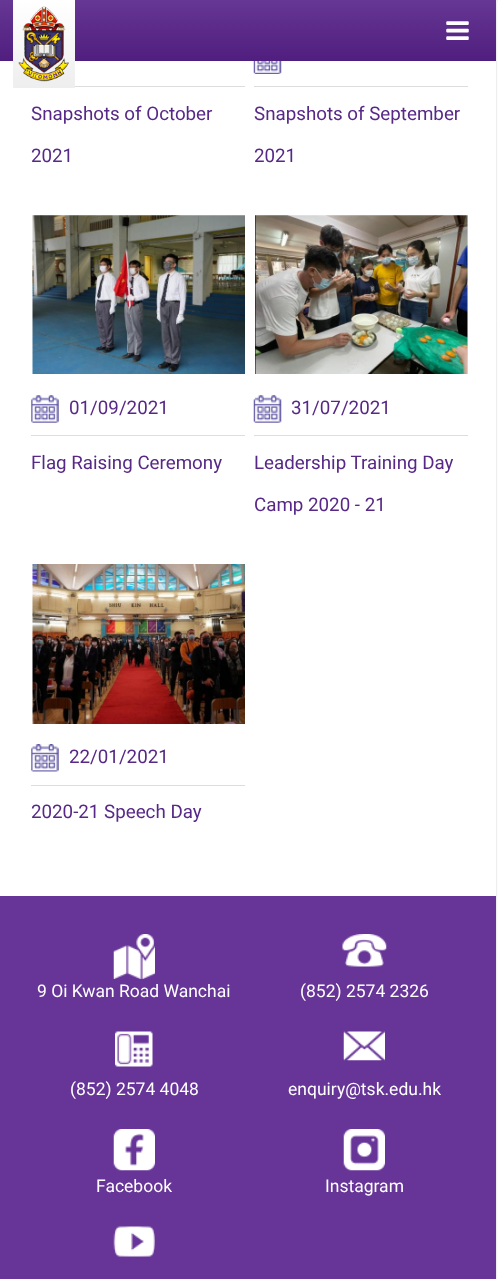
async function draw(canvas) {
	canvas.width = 498;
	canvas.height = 1279;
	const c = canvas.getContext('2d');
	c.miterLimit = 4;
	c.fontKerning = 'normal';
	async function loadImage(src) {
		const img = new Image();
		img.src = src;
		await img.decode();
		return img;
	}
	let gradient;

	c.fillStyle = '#fff';
	c.fillRect(0, 0, 498, 1279);
	gradient = c.createLinearGradient(249, 61, 249, 0);
	gradient.addColorStop(0, '#4f1e7e');
	gradient.addColorStop(1, '#673795');
	c.fillStyle = gradient;
	c.fillRect(0, 0, 496, 61);
	gradient = c.createLinearGradient(44, 88, 44, 0);
	gradient.addColorStop(0, '#eee');
	gradient.addColorStop(1, '#fff');
	c.fillStyle = gradient;
	c.fillRect(13, 0, 62, 88);
	c.drawImage(await loadImage('img1.png'), 18, 6, 51, 76);
	c.drawImage(await loadImage('img2.png'), 446, 21, 23, 19);
	c.fillStyle = '#fcfcfc';
	c.beginPath();
	c.rect(496.5, 0.5, 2, 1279);
	c.fill();
	c.strokeStyle = '#eee';
	c.stroke();
	c.fillStyle = '#ddd';
	c.fillRect(75, 86, 170, 1);
	c.font = '18.75px Roboto';
	c.fillStyle = '#572886';
	c.fillText('Snapshots of October', 31, 120);
	c.fillText('2021', 31, 162);
	c.drawImage(await loadImage('img3.png'), 253, 61, 29, 13);
	c.fillStyle = '#ddd';
	c.fillRect(254, 86, 214, 1);
	c.fillStyle = '#572886';
	c.fillText('Snapshots of September', 254, 120);
	c.fillText('2021', 254, 162);
	c.drawImage(await loadImage('img4.png'), 32, 215, 213, 159);
	c.drawImage(await loadImage('img5.png'), 31, 395, 28, 28);
	c.fillStyle = '#ddd';
	c.fillRect(31, 435, 214, 1);
	c.fillStyle = '#572886';
	c.fillText('01/09/2021', 69, 414);
	c.fillText('Flag Raising Ceremony', 31, 469);
	c.drawImage(await loadImage('img6.png'), 255, 215, 213, 159);
	c.drawImage(await loadImage('img7.png'), 253, 395, 29, 28);
	c.fillStyle = '#ddd';
	c.fillRect(254, 435, 214, 1);
	c.fillStyle = '#572886';
	for (const [text, x, y] of [
		['31/07/2021', 291, 414],
		['Leadership Training Day', 254, 469],
		['Camp 2020 - 21', 254, 511],
	]) {
		c.fillText(text, x, y);
	}
	c.drawImage(await loadImage('img8.png'), 32, 564, 213, 160);
	c.drawImage(await loadImage('img9.png'), 31, 744, 28, 28);
	c.fillStyle = '#ddd';
	c.fillRect(31, 785, 214, 1);
	c.fillStyle = '#572886';
	c.fillText('22/01/2021', 69, 763);
	c.fillText('2020-21 Speech Day', 31, 818);
	c.fillStyle = '#673597';
	c.fillRect(0, 896, 496, 383);
	c.drawImage(await loadImage('img10.png'), 113, 934, 42, 45);
	c.font = '17.5px Roboto';
	c.fillStyle = '#fff';
	c.fillText('9 Oi Kwan Road Wanchai', 37, 997);
	c.drawImage(await loadImage('img11.png'), 342, 934, 45, 33);
	c.fillText('(852) 2574 2326', 300, 997);
	c.drawImage(await loadImage('img12.png'), 115, 1031, 38, 36);
	c.fillText('(852) 2574 4048', 70, 1095);
	c.drawImage(await loadImage('img13.png'), 343, 1031, 42, 30);
	c.fillText('enquiry@tsk.edu.hk', 288, 1095);
	c.drawImage(await loadImage('img14.png'), 113, 1129, 42, 42);
	c.fillText('Facebook', 96, 1192);
	c.drawImage(await loadImage('img15.png'), 343, 1129, 42, 42);
	c.fillText('Instagram', 325, 1192);
	c.drawImage(await loadImage('img16.png'), 113, 1226, 42, 31);
}

draw(document.querySelector('canvas'));
